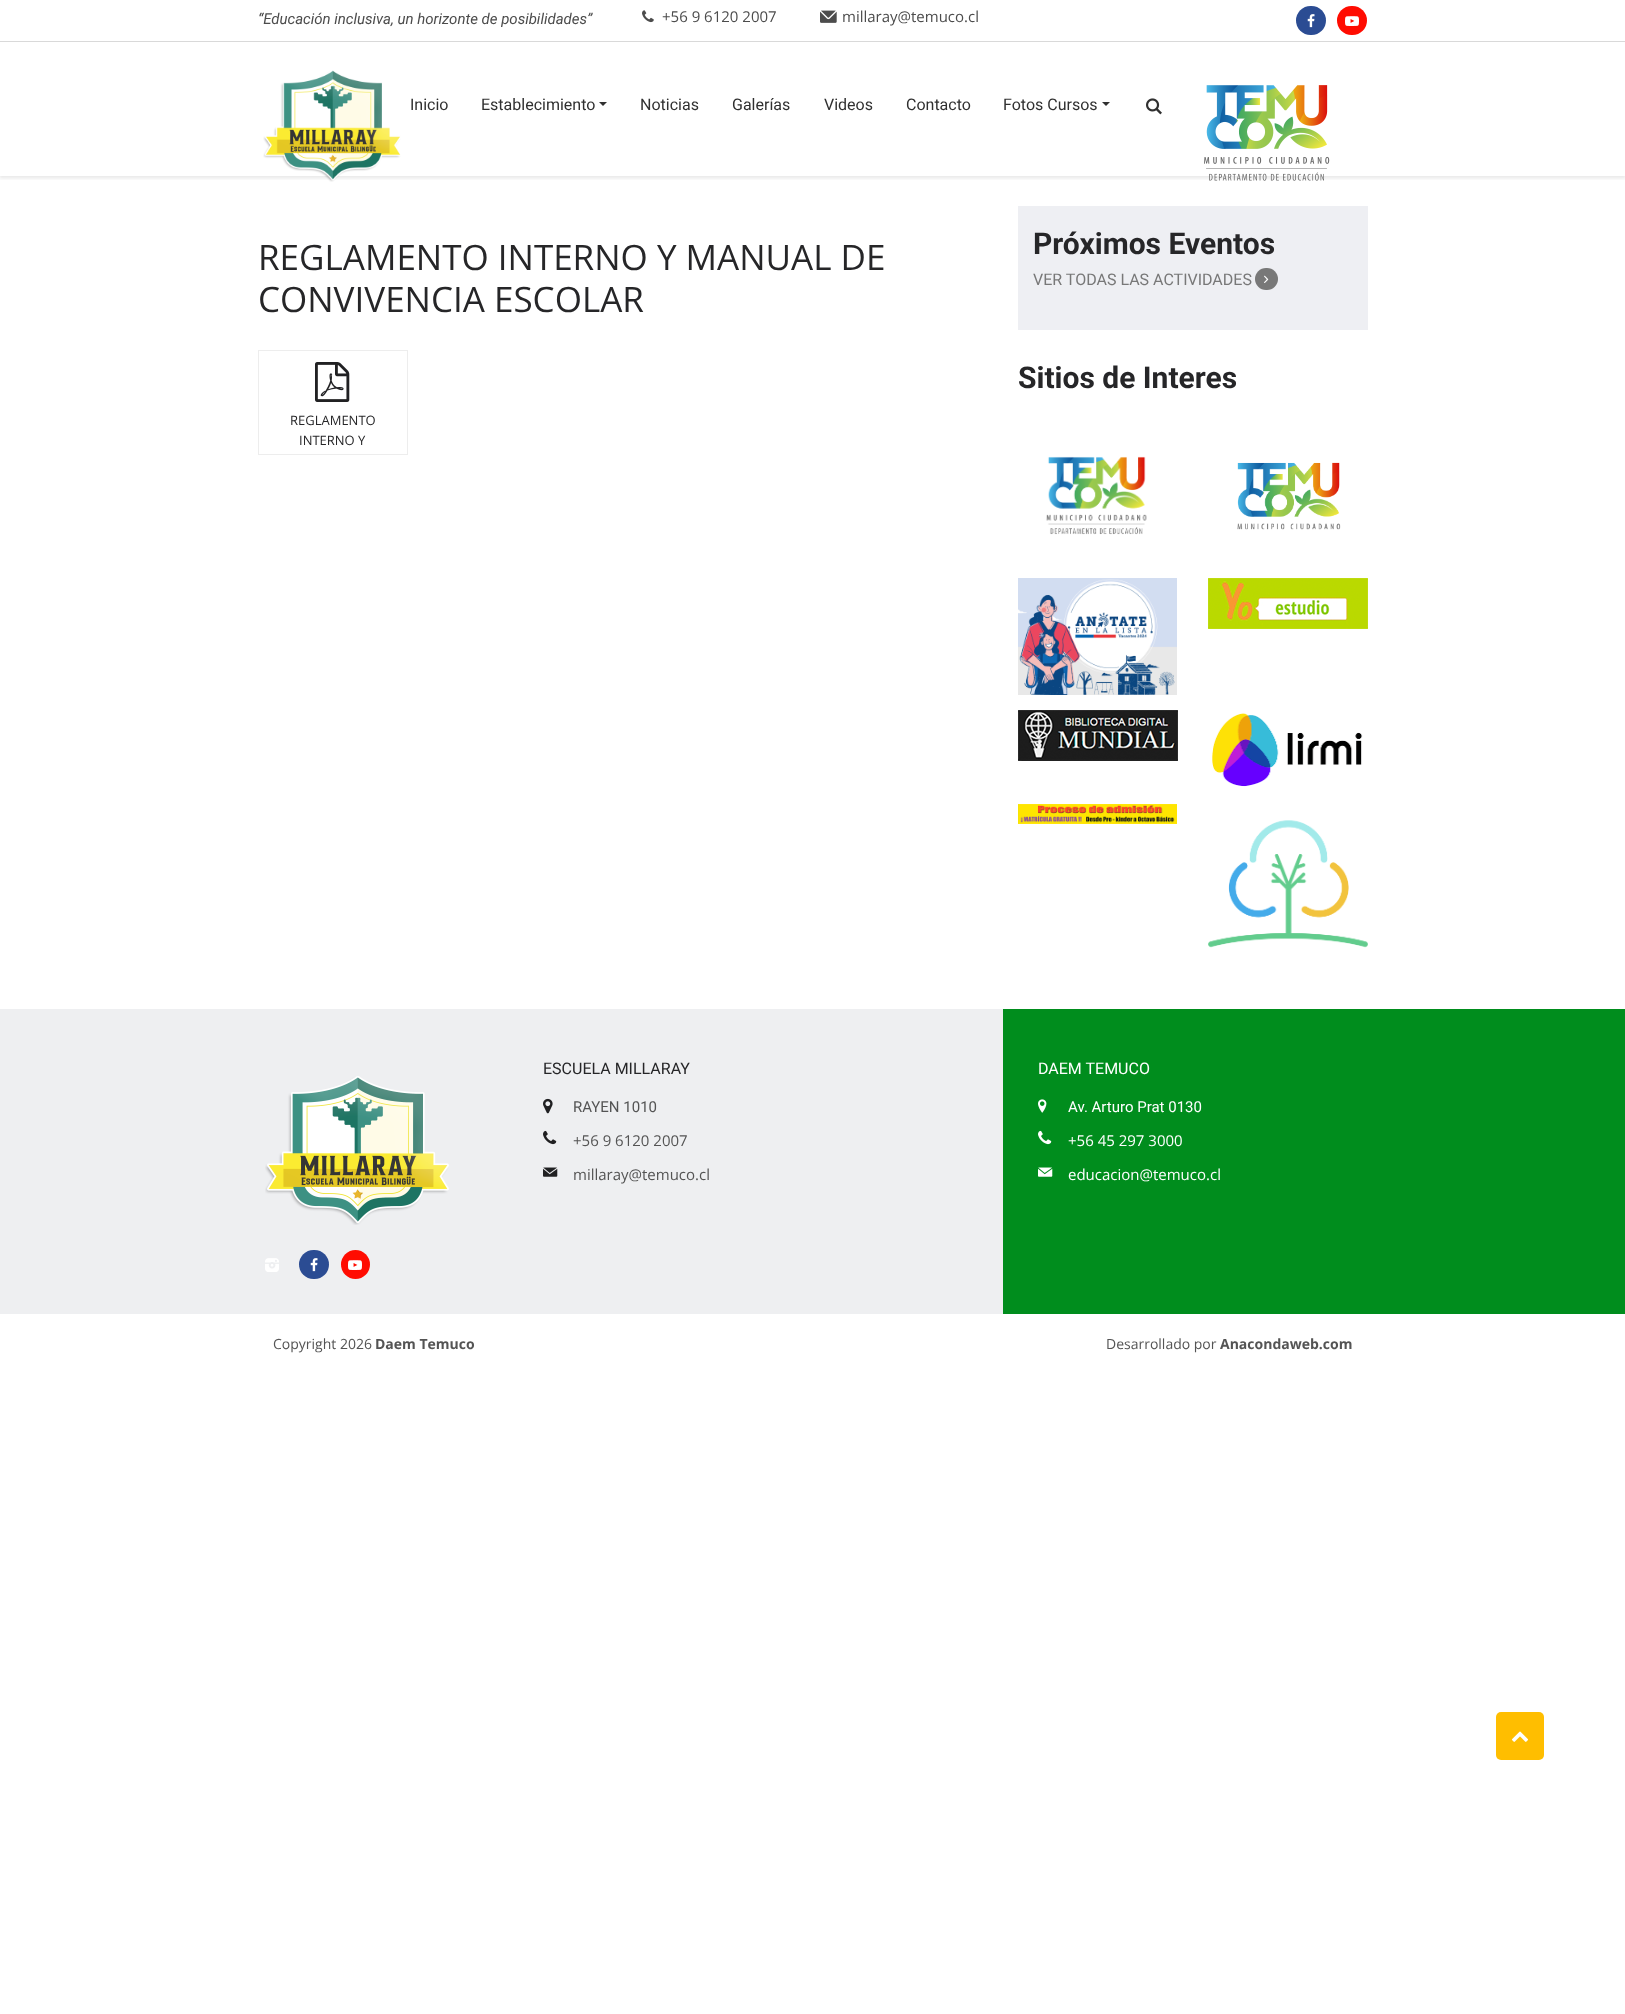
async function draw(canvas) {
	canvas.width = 1625;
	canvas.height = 2014;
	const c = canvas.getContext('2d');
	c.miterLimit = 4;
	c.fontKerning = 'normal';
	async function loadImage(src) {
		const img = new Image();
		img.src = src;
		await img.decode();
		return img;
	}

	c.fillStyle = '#fff';
	c.fillRect(0, 0, 1625, 2014);
	c.save();
	c.beginPath();
	c.rect(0, 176, 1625, 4);
	c.clip();
	c.fillStyle = '#0000001a';
	c.filter = 'blur(2px)';
	c.beginPath();
	c.rect(-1, 0, 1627, 178);
	c.fill();
	c.filter = 'none';
	c.restore();
	c.fillStyle = '#d9d9d9';
	c.fillRect(0, 41, 1625, 1);
	c.font = 'italic 15px Roboto';
	c.fillStyle = '#4c4c4c';
	c.fillText('“Educación inclusiva, un horizonte de posibilidades”', 258, 24);
	c.drawImage(await loadImage('img1.png'), 642, 10, 12, 13);
	c.font = '15px Open Sans';
	c.fillText('+56 9 6120 2007', 662, 22);
	c.drawImage(await loadImage('img2.png'), 820, 10, 17, 13);
	c.fillText('millaray@temuco.cl', 842, 22);
	c.fillStyle = '#2b4c93';
	c.beginPath();
	c.roundRect(1296, 6, 30, 29, 14.5);
	c.fill();
	c.drawImage(await loadImage('img3.png'), 1307, 14, 8, 14);
	c.fillStyle = '#ff0c01';
	c.beginPath();
	c.roundRect(1337, 6, 30, 29, 14.5);
	c.fill();
	c.drawImage(await loadImage('img4.png'), 1345, 16, 14, 10);
	c.drawImage(await loadImage('img5.png'), 263, 70, 138, 112);
	c.font = '16px Roboto';
	c.fillStyle = '#303030';
	c.fillText('Inicio', 410, 110);
	c.fillText('Establecimiento', 481, 110);
	c.beginPath();
	c.moveTo(599, 102);
	c.lineTo(607, 102);
	c.lineTo(603, 106);
	c.closePath();
	c.fill();
	for (const [text, x, y] of [
		['Noticias', 640, 110],
		['Galerías', 732, 110],
		['Videos', 824, 110],
		['Contacto', 906, 110],
		['Fotos Cursos', 1003, 110],
	]) {
		c.fillText(text, x, y);
	}
	c.beginPath();
	c.moveTo(1102, 102);
	c.lineTo(1110, 102);
	c.lineTo(1106, 106);
	c.closePath();
	c.fill();
	c.drawImage(await loadImage('img6.png'), 1146, 98, 16, 17);
	c.drawImage(await loadImage('img7.png'), 1204, 85, 126, 96);
	c.font = '35px Open Sans';
	c.fillStyle = '#262628';
	c.fillText('REGLAMENTO INTERNO Y MANUAL DE', 258, 270);
	c.fillText('CONVIVENCIA ESCOLAR', 258, 312);
	c.strokeStyle = '#ededed';
	c.strokeRect(258.5, 350.5, 149, 104);
	c.drawImage(await loadImage('img8.png'), 315, 362, 35, 40);
	c.font = '13px Open Sans';
	c.fillText('REGLAMENTO', 290, 425);
	c.fillText('INTERNO Y', 299, 445);
	c.fillStyle = '#eeeff3';
	c.fillRect(1018, 206, 350, 124);
	c.font = 'bold 30px Roboto';
	c.fillStyle = '#262628';
	c.fillText('Próximos Eventos', 1033, 254);
	c.font = '16px Roboto';
	c.fillStyle = '#787878';
	c.fillText('VER TODAS LAS ACTIVIDADES', 1033, 285);
	c.beginPath();
	c.roundRect(1255, 268, 23, 22, 11);
	c.fill();
	c.drawImage(await loadImage('img9.png'), 1264, 275, 5, 8);
	c.font = 'bold 30px Roboto';
	c.fillStyle = '#262628';
	c.fillText('Sitios de Interes', 1018, 388);
	c.drawImage(await loadImage('img10.png'), 1046, 456, 101, 79);
	c.drawImage(await loadImage('img11.png'), 1237, 462, 104, 68);
	c.drawImage(await loadImage('img12.png'), 1018, 578, 159, 117);
	c.drawImage(await loadImage('img13.png'), 1208, 578, 160, 51);
	c.drawImage(await loadImage('img14.png'), 1018, 710, 160, 51);
	c.drawImage(await loadImage('img15.png'), 1212, 713, 151, 74);
	c.drawImage(await loadImage('img16.png'), 1018, 804, 159, 20);
	c.drawImage(await loadImage('img17.png'), 1208, 820, 160, 128);
	c.fillStyle = '#eeeff1';
	c.fillRect(0, 1009, 1003, 305);
	c.fillStyle = '#008d1d';
	c.fillRect(1003, 1009, 622, 305);
	c.drawImage(await loadImage('img18.png'), 265, 1076, 184, 149);
	c.drawImage(await loadImage('img19.png'), 265, 1258, 14, 14);
	c.fillStyle = '#2b4c93';
	c.beginPath();
	c.roundRect(299, 1250, 30, 29, 14.5);
	c.fill();
	c.drawImage(await loadImage('img3.png'), 310, 1258, 8, 14);
	c.fillStyle = '#ff0c01';
	c.beginPath();
	c.arc(355.5, 1264.5, 14.5, 0, 2 * Math.PI);
	c.fill();
	c.drawImage(await loadImage('img4.png'), 348, 1260, 14, 10);
	c.font = '16px Roboto';
	c.fillStyle = '#262628';
	c.fillText('ESCUELA MILLARAY', 543, 1074);
	c.drawImage(await loadImage('img20.png'), 543, 1098, 10, 16);
	c.font = '15px Roboto';
	c.fillStyle = '#545454';
	c.fillText('RAYEN 1010', 573, 1112);
	c.drawImage(await loadImage('img21.png'), 543, 1130, 14, 15);
	c.font = '15px Open Sans';
	c.fillText('+56 9 6120 2007', 573, 1146);
	c.drawImage(await loadImage('img22.png'), 543, 1167, 15, 10);
	c.fillText('millaray@temuco.cl', 573, 1180);
	c.font = '16px Roboto';
	c.fillStyle = '#fff';
	c.fillText('DAEM TEMUCO', 1038, 1074);
	c.drawImage(await loadImage('img23.png'), 1038, 1099, 9, 14);
	c.font = '15px Roboto';
	c.fillText('Av. Arturo Prat 0130', 1068, 1112);
	c.drawImage(await loadImage('img24.png'), 1038, 1130, 14, 15);
	c.font = '15px Open Sans';
	c.fillText('+56 45 297 3000', 1068, 1146);
	c.drawImage(await loadImage('img25.png'), 1038, 1167, 15, 10);
	c.fillText('educacion@temuco.cl', 1068, 1180);
	c.font = '14px Open Sans';
	c.fillStyle = '#545454';
	c.fillText('Copyright 2026', 273, 1349);
	c.font = 'bold 14px Open Sans';
	c.fillText('Daem Temuco', 375, 1349);
	c.font = '14px Open Sans';
	c.fillText('Desarrollado por', 1106, 1349);
	c.font = 'bold 14px Open Sans';
	c.fillText('Anacondaweb.com', 1220, 1349);
	c.fillStyle = '#ffbe00';
	c.beginPath();
	c.roundRect(1496, 1712, 48, 48, 5);
	c.fill();
	c.drawImage(await loadImage('img26.png'), 1511, 1731, 18, 11);
}

draw(document.querySelector('canvas'));
